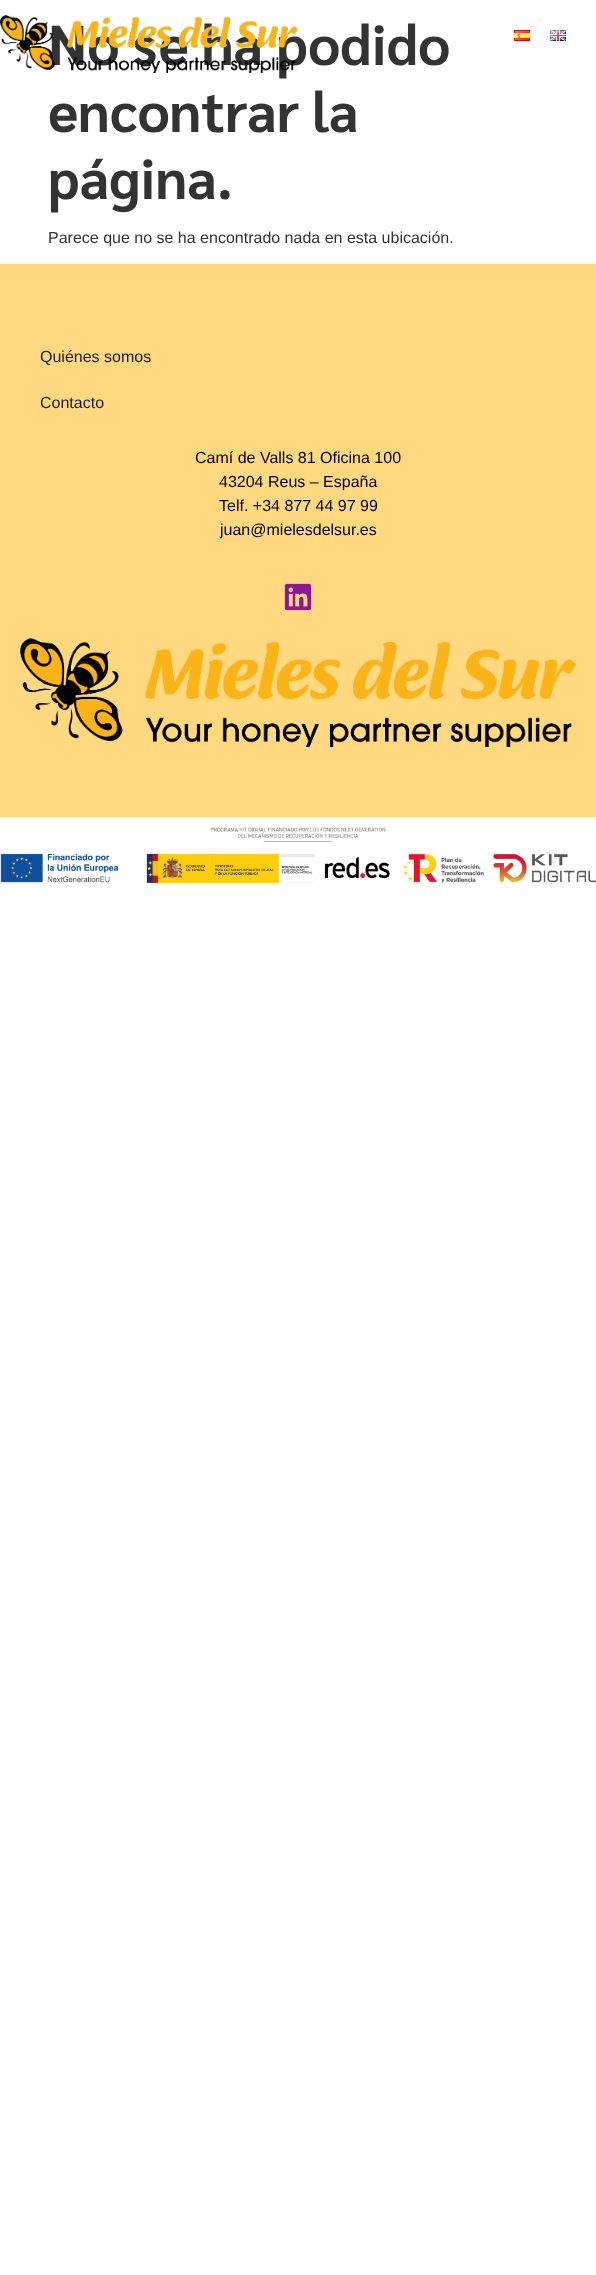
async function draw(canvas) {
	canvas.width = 596;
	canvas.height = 2275;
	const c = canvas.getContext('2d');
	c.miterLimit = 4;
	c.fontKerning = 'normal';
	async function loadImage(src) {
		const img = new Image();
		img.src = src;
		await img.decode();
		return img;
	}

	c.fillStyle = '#fff';
	c.fillRect(0, 0, 596, 2275);
	c.font = 'bold 56px Sarabun';
	c.fillStyle = '#333';
	c.fillText('No se ha podido', 48, 65);
	c.drawImage(await loadImage('img1.png'), 0, 15, 298, 58);
	c.drawImage(await loadImage('img2.png'), 514, 30, 16, 11);
	c.drawImage(await loadImage('img3.png'), 550, 30, 16, 11);
	c.fillText('encontrar la', 48, 132);
	c.fillText('página.', 48, 199);
	c.font = '16px Liberation Sans';
	c.fillText('Parece que no se ha encontrado nada en esta ubicación.', 48, 243);
	c.fillStyle = '#ffd880';
	c.fillRect(0, 264, 596, 553);
	c.fillStyle = '#1c1c1b';
	c.fillText('Quiénes somos', 40, 362);
	c.fillText('Contacto', 40, 408);
	c.fillStyle = '#000';
	for (const [text, x, y] of [
		['Camí de Valls 81 Oficina 100', 195, 463],
		['43204 Reus – España', 219, 487],
		['Telf. +34 877 44 97 99', 219, 511],
		['juan@mielesdelsur.es', 220, 535],
	]) {
		c.fillText(text, x, y);
	}
	c.drawImage(await loadImage('img4.png'), 284, 583, 28, 28);
	c.drawImage(await loadImage('img5.png'), 20, 638, 556, 109);
	c.drawImage(await loadImage('img6.png'), 0, 827, 596, 56);
}

draw(document.querySelector('canvas'));
